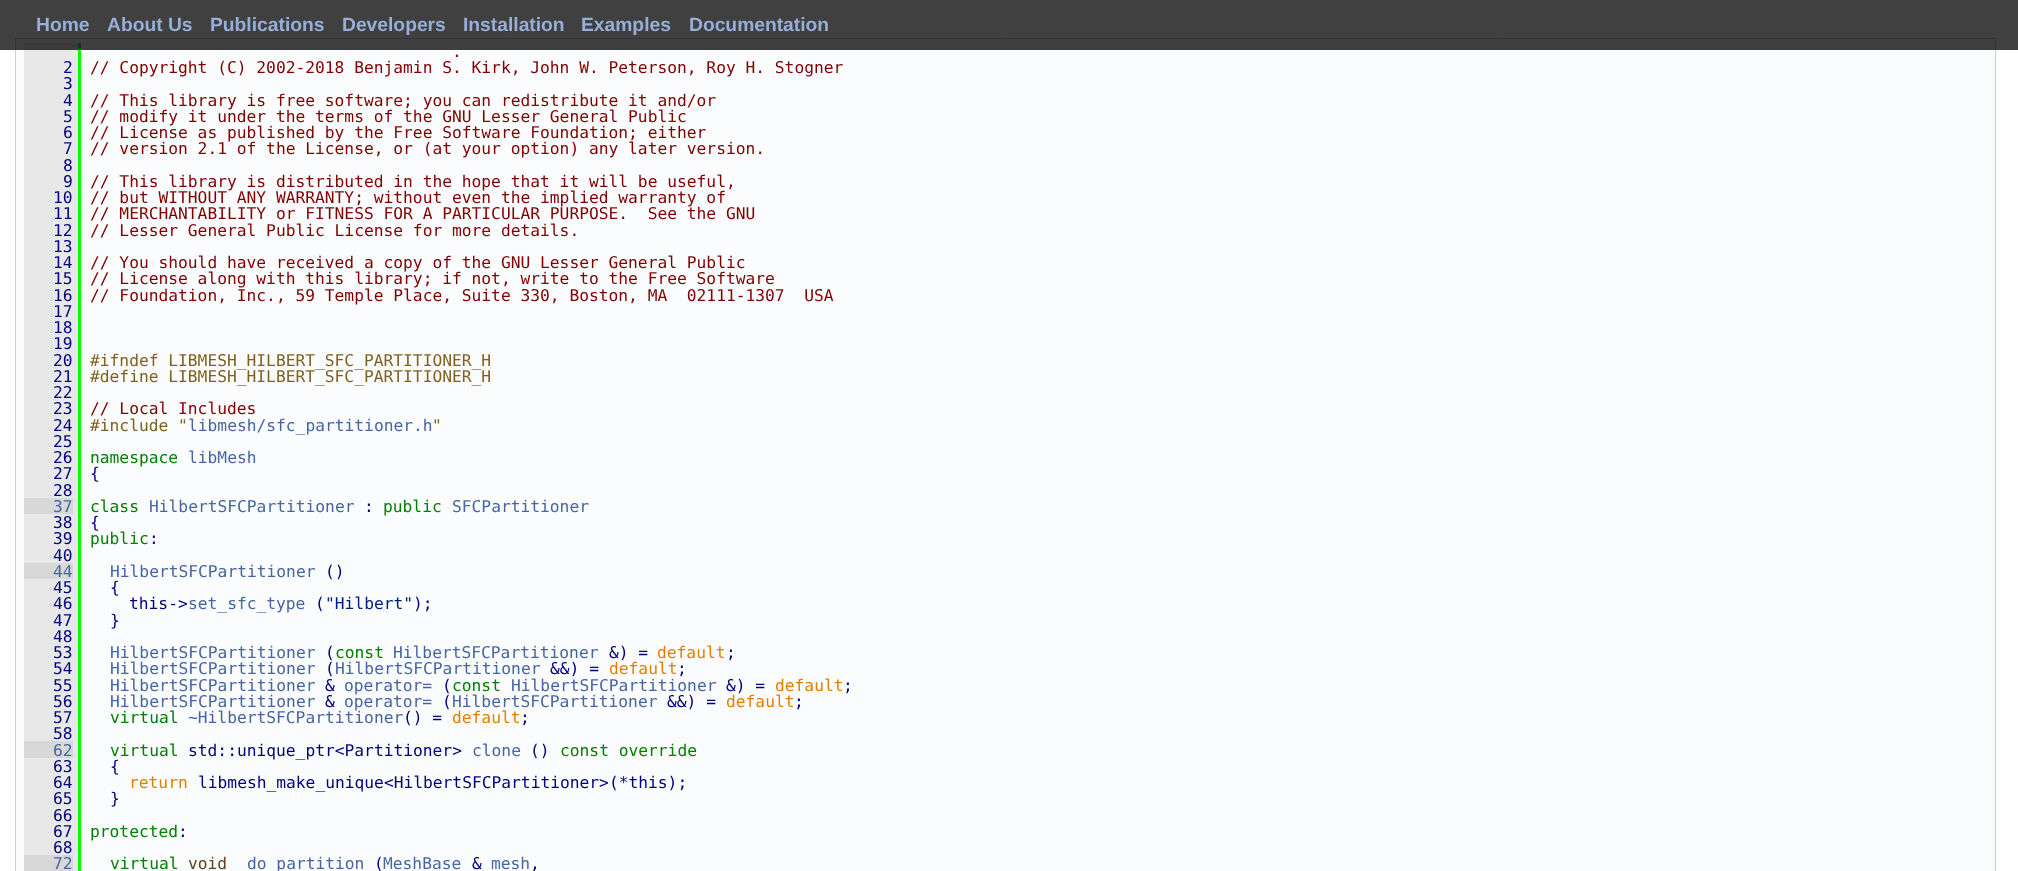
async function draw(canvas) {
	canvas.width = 2018;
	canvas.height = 871;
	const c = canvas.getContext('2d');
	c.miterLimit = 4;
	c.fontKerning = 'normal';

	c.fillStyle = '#fff';
	c.fillRect(0, 0, 2018, 871);
	c.fillStyle = '#fbfcfd';
	c.beginPath();
	c.rect(15.5, 38.5, 1980, 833);
	c.fill();
	c.strokeStyle = '#c4cfe5';
	c.stroke();
	for (const [x, y, w, h, color] of [
		[24, 43, 54, 455, '#e8e8e8'],
		[78, 43, 3, 828, '#0f0'],
		[0, 0, 2018, 50, '#000000bf'],
	]) {
		c.fillStyle = color;
		c.fillRect(x, y, w, h);
	}
	c.font = 'bold 19.25px Liberation Sans';
	c.fillStyle = '#96aed8';
	for (const [text, x, y] of [
		['Home', 36, 31],
		['About Us', 107, 31],
		['Publications', 210, 31],
		['Developers', 342, 31],
		['Installation', 463, 31],
		['Examples', 581, 31],
		['Documentation', 689, 31],
	]) {
		c.fillText(text, x, y);
	}
	c.font = '16.25px DejaVu Sans Mono';
	c.fillStyle = '#800000';
	c.fillText('.', 452, 57);
	c.fillStyle = '#000080';
	c.fillText('2', 63, 73);
	c.fillStyle = '#800000';
	c.fillText('// Copyright (C) 2002-2018 Benjamin S. Kirk, John W. Peterson, Roy H. Stogner', 90, 73);
	c.fillStyle = '#000080';
	c.fillText('3', 63, 89);
	c.fillText('4', 63, 106);
	c.fillStyle = '#800000';
	c.fillText('// This library is free software; you can redistribute it and/or', 90, 106);
	c.fillStyle = '#000080';
	c.fillText('5', 63, 122);
	c.fillStyle = '#800000';
	c.fillText('// modify it under the terms of the GNU Lesser General Public', 90, 122);
	c.fillStyle = '#000080';
	c.fillText('6', 63, 138);
	c.fillStyle = '#800000';
	c.fillText('// License as published by the Free Software Foundation; either', 90, 138);
	c.fillStyle = '#000080';
	c.fillText('7', 63, 154);
	c.fillStyle = '#800000';
	c.fillText('// version 2.1 of the License, or (at your option) any later version.', 90, 154);
	c.fillStyle = '#000080';
	c.fillText('8', 63, 171);
	c.fillText('9', 63, 187);
	c.fillStyle = '#800000';
	c.fillText('// This library is distributed in the hope that it will be useful,', 90, 187);
	c.fillStyle = '#000080';
	c.fillText('10', 53, 203);
	c.fillStyle = '#800000';
	c.fillText('// but WITHOUT ANY WARRANTY; without even the implied warranty of', 90, 203);
	c.fillStyle = '#000080';
	c.fillText('11', 53, 219);
	c.fillStyle = '#800000';
	c.fillText('// MERCHANTABILITY or FITNESS FOR A PARTICULAR PURPOSE.  See the GNU', 90, 219);
	c.fillStyle = '#000080';
	c.fillText('12', 53, 236);
	c.fillStyle = '#800000';
	c.fillText('// Lesser General Public License for more details.', 90, 236);
	c.fillStyle = '#000080';
	c.fillText('13', 53, 252);
	c.fillText('14', 53, 268);
	c.fillStyle = '#800000';
	c.fillText('// You should have received a copy of the GNU Lesser General Public', 90, 268);
	c.fillStyle = '#000080';
	c.fillText('15', 53, 284);
	c.fillStyle = '#800000';
	c.fillText('// License along with this library; if not, write to the Free Software', 90, 284);
	c.fillStyle = '#000080';
	c.fillText('16', 53, 301);
	c.fillStyle = '#800000';
	c.fillText('// Foundation, Inc., 59 Temple Place, Suite 330, Boston, MA  02111-1307  USA', 90, 301);
	c.fillStyle = '#000080';
	for (const [text, x, y] of [
		['17', 53, 317],
		['18', 53, 333],
		['19', 53, 349],
		['20', 53, 366],
	]) {
		c.fillText(text, x, y);
	}
	c.fillStyle = '#806020';
	c.fillText('#ifndef LIBMESH_HILBERT_SFC_PARTITIONER_H', 90, 366);
	c.fillStyle = '#000080';
	c.fillText('21', 53, 382);
	c.fillStyle = '#806020';
	c.fillText('#define LIBMESH_HILBERT_SFC_PARTITIONER_H', 90, 382);
	c.fillStyle = '#000080';
	c.fillText('22', 53, 398);
	c.fillText('23', 53, 414);
	c.fillStyle = '#800000';
	c.fillText('// Local Includes', 90, 414);
	c.fillStyle = '#000080';
	c.fillText('24', 53, 431);
	c.fillStyle = '#806020';
	c.fillText('#include "', 90, 431);
	c.fillStyle = '#4665a2';
	c.fillText('libmesh/sfc_partitioner.h', 188, 431);
	c.fillStyle = '#806020';
	c.fillText('"', 432, 431);
	c.fillStyle = '#000080';
	c.fillText('25', 53, 447);
	c.fillText('26', 53, 463);
	c.fillStyle = '#008000';
	c.fillText('namespace', 90, 463);
	c.fillStyle = '#4665a2';
	c.fillText('libMesh', 188, 463);
	c.fillStyle = '#000080';
	for (const [text, x, y] of [
		['27', 53, 479],
		['{', 90, 479],
		['28', 53, 496],
	]) {
		c.fillText(text, x, y);
	}
	c.fillStyle = '#d8d8d8';
	c.fillRect(24, 498, 49, 16);
	c.fillStyle = '#4665a2';
	c.fillText('37', 53, 512);
	c.fillStyle = '#e8e8e8';
	c.fillRect(73, 498, 5, 16);
	c.fillStyle = '#008000';
	c.fillText('class', 90, 512);
	c.fillStyle = '#4665a2';
	c.fillText('HilbertSFCPartitioner', 149, 512);
	c.fillStyle = '#000080';
	c.fillText(':', 364, 512);
	c.fillStyle = '#008000';
	c.fillText('public', 383, 512);
	c.fillStyle = '#4665a2';
	c.fillText('SFCPartitioner', 452, 512);
	c.fillStyle = '#e8e8e8';
	c.fillRect(24, 514, 54, 49);
	c.fillStyle = '#000080';
	for (const [text, x, y] of [
		['38', 53, 528],
		['{', 90, 528],
		['39', 53, 544],
	]) {
		c.fillText(text, x, y);
	}
	c.fillStyle = '#008000';
	c.fillText('public', 90, 544);
	c.fillStyle = '#000080';
	c.fillText(':', 149, 544);
	c.fillText('40', 53, 561);
	c.fillStyle = '#d8d8d8';
	c.fillRect(24, 563, 49, 16);
	c.fillStyle = '#4665a2';
	c.fillText('44', 53, 577);
	c.fillStyle = '#e8e8e8';
	c.fillRect(73, 563, 5, 16);
	c.fillStyle = '#4665a2';
	c.fillText('HilbertSFCPartitioner', 110, 577);
	c.fillStyle = '#000080';
	c.fillText('()', 325, 577);
	c.fillStyle = '#e8e8e8';
	c.fillRect(24, 579, 54, 162);
	c.fillStyle = '#000080';
	for (const [text, x, y] of [
		['45', 53, 593],
		['{', 110, 593],
		['46', 53, 609],
		['this->', 129, 609],
	]) {
		c.fillText(text, x, y);
	}
	c.fillStyle = '#4665a2';
	c.fillText('set_sfc_type', 188, 609);
	c.fillStyle = '#000080';
	c.fillText('(', 315, 609);
	c.fillStyle = '#002080';
	c.fillText('"Hilbert"', 325, 609);
	c.fillStyle = '#000080';
	for (const [text, x, y] of [
		[');', 413, 609],
		['47', 53, 626],
		['}', 110, 626],
		['48', 53, 642],
		['53', 53, 658],
	]) {
		c.fillText(text, x, y);
	}
	c.fillStyle = '#4665a2';
	c.fillText('HilbertSFCPartitioner', 110, 658);
	c.fillStyle = '#000080';
	c.fillText('(', 325, 658);
	c.fillStyle = '#008000';
	c.fillText('const', 335, 658);
	c.fillStyle = '#4665a2';
	c.fillText('HilbertSFCPartitioner', 393, 658);
	c.fillStyle = '#000080';
	c.fillText('&) =', 609, 658);
	c.fillStyle = '#e08000';
	c.fillText('default', 657, 658);
	c.fillStyle = '#000080';
	c.fillText(';', 726, 658);
	c.fillText('54', 53, 674);
	c.fillStyle = '#4665a2';
	c.fillText('HilbertSFCPartitioner', 110, 674);
	c.fillStyle = '#000080';
	c.fillText('(', 325, 674);
	c.fillStyle = '#4665a2';
	c.fillText('HilbertSFCPartitioner', 335, 674);
	c.fillStyle = '#000080';
	c.fillText('&&) =', 550, 674);
	c.fillStyle = '#e08000';
	c.fillText('default', 609, 674);
	c.fillStyle = '#000080';
	c.fillText(';', 677, 674);
	c.fillText('55', 53, 691);
	c.fillStyle = '#4665a2';
	c.fillText('HilbertSFCPartitioner', 110, 691);
	c.fillStyle = '#000080';
	c.fillText('&', 325, 691);
	c.fillStyle = '#4665a2';
	c.fillText('operator=', 344, 691);
	c.fillStyle = '#000080';
	c.fillText('(', 442, 691);
	c.fillStyle = '#008000';
	c.fillText('const', 452, 691);
	c.fillStyle = '#4665a2';
	c.fillText('HilbertSFCPartitioner', 511, 691);
	c.fillStyle = '#000080';
	c.fillText('&) =', 726, 691);
	c.fillStyle = '#e08000';
	c.fillText('default', 775, 691);
	c.fillStyle = '#000080';
	c.fillText(';', 843, 691);
	c.fillText('56', 53, 707);
	c.fillStyle = '#4665a2';
	c.fillText('HilbertSFCPartitioner', 110, 707);
	c.fillStyle = '#000080';
	c.fillText('&', 325, 707);
	c.fillStyle = '#4665a2';
	c.fillText('operator=', 344, 707);
	c.fillStyle = '#000080';
	c.fillText('(', 442, 707);
	c.fillStyle = '#4665a2';
	c.fillText('HilbertSFCPartitioner', 452, 707);
	c.fillStyle = '#000080';
	c.fillText('&&) =', 667, 707);
	c.fillStyle = '#e08000';
	c.fillText('default', 726, 707);
	c.fillStyle = '#000080';
	c.fillText(';', 794, 707);
	c.fillText('57', 53, 723);
	c.fillStyle = '#008000';
	c.fillText('virtual', 110, 723);
	c.fillStyle = '#4665a2';
	c.fillText('~HilbertSFCPartitioner', 188, 723);
	c.fillStyle = '#000080';
	c.fillText('() =', 403, 723);
	c.fillStyle = '#e08000';
	c.fillText('default', 452, 723);
	c.fillStyle = '#000080';
	c.fillText(';', 520, 723);
	c.fillText('58', 53, 739);
	c.fillStyle = '#d8d8d8';
	c.fillRect(24, 741, 49, 17);
	c.fillStyle = '#4665a2';
	c.fillText('62', 53, 756);
	c.fillStyle = '#e8e8e8';
	c.fillRect(73, 741, 5, 17);
	c.fillStyle = '#008000';
	c.fillText('virtual', 110, 756);
	c.fillStyle = '#000080';
	c.fillText('std::unique_ptr<Partitioner>', 188, 756);
	c.fillStyle = '#4665a2';
	c.fillText('clone', 472, 756);
	c.fillStyle = '#000080';
	c.fillText('()', 530, 756);
	c.fillStyle = '#008000';
	c.fillText('const override', 560, 756);
	c.fillStyle = '#e8e8e8';
	c.fillRect(24, 758, 54, 97);
	c.fillStyle = '#000080';
	for (const [text, x, y] of [
		['63', 53, 772],
		['{', 110, 772],
		['64', 53, 788],
	]) {
		c.fillText(text, x, y);
	}
	c.fillStyle = '#e08000';
	c.fillText('return', 129, 788);
	c.fillStyle = '#000080';
	for (const [text, x, y] of [
		['libmesh_make_unique<HilbertSFCPartitioner>(*this);', 198, 788],
		['65', 53, 804],
		['}', 110, 804],
		['66', 53, 821],
		['67', 53, 837],
	]) {
		c.fillText(text, x, y);
	}
	c.fillStyle = '#008000';
	c.fillText('protected', 90, 837);
	c.fillStyle = '#000080';
	c.fillText(':', 178, 837);
	c.fillText('68', 53, 853);
	c.fillStyle = '#d8d8d8';
	c.fillRect(24, 855, 49, 16);
	c.fillStyle = '#4665a2';
	c.fillText('72', 53, 869);
	c.fillStyle = '#e8e8e8';
	c.fillRect(73, 855, 5, 16);
	c.fillStyle = '#008000';
	c.fillText('virtual', 110, 869);
	c.fillStyle = '#604020';
	c.fillText('void', 188, 869);
	c.fillStyle = '#4665a2';
	c.fillText('do_partition', 247, 869);
	c.fillStyle = '#000080';
	c.fillText('(', 374, 869);
	c.fillStyle = '#4665a2';
	c.fillText('MeshBase', 383, 869);
	c.fillStyle = '#000080';
	c.fillText('&', 472, 869);
	c.fillStyle = '#4665a2';
	c.fillText('mesh', 491, 869);
	c.fillStyle = '#000080';
	c.fillText(',', 530, 869);
}

draw(document.querySelector('canvas'));
